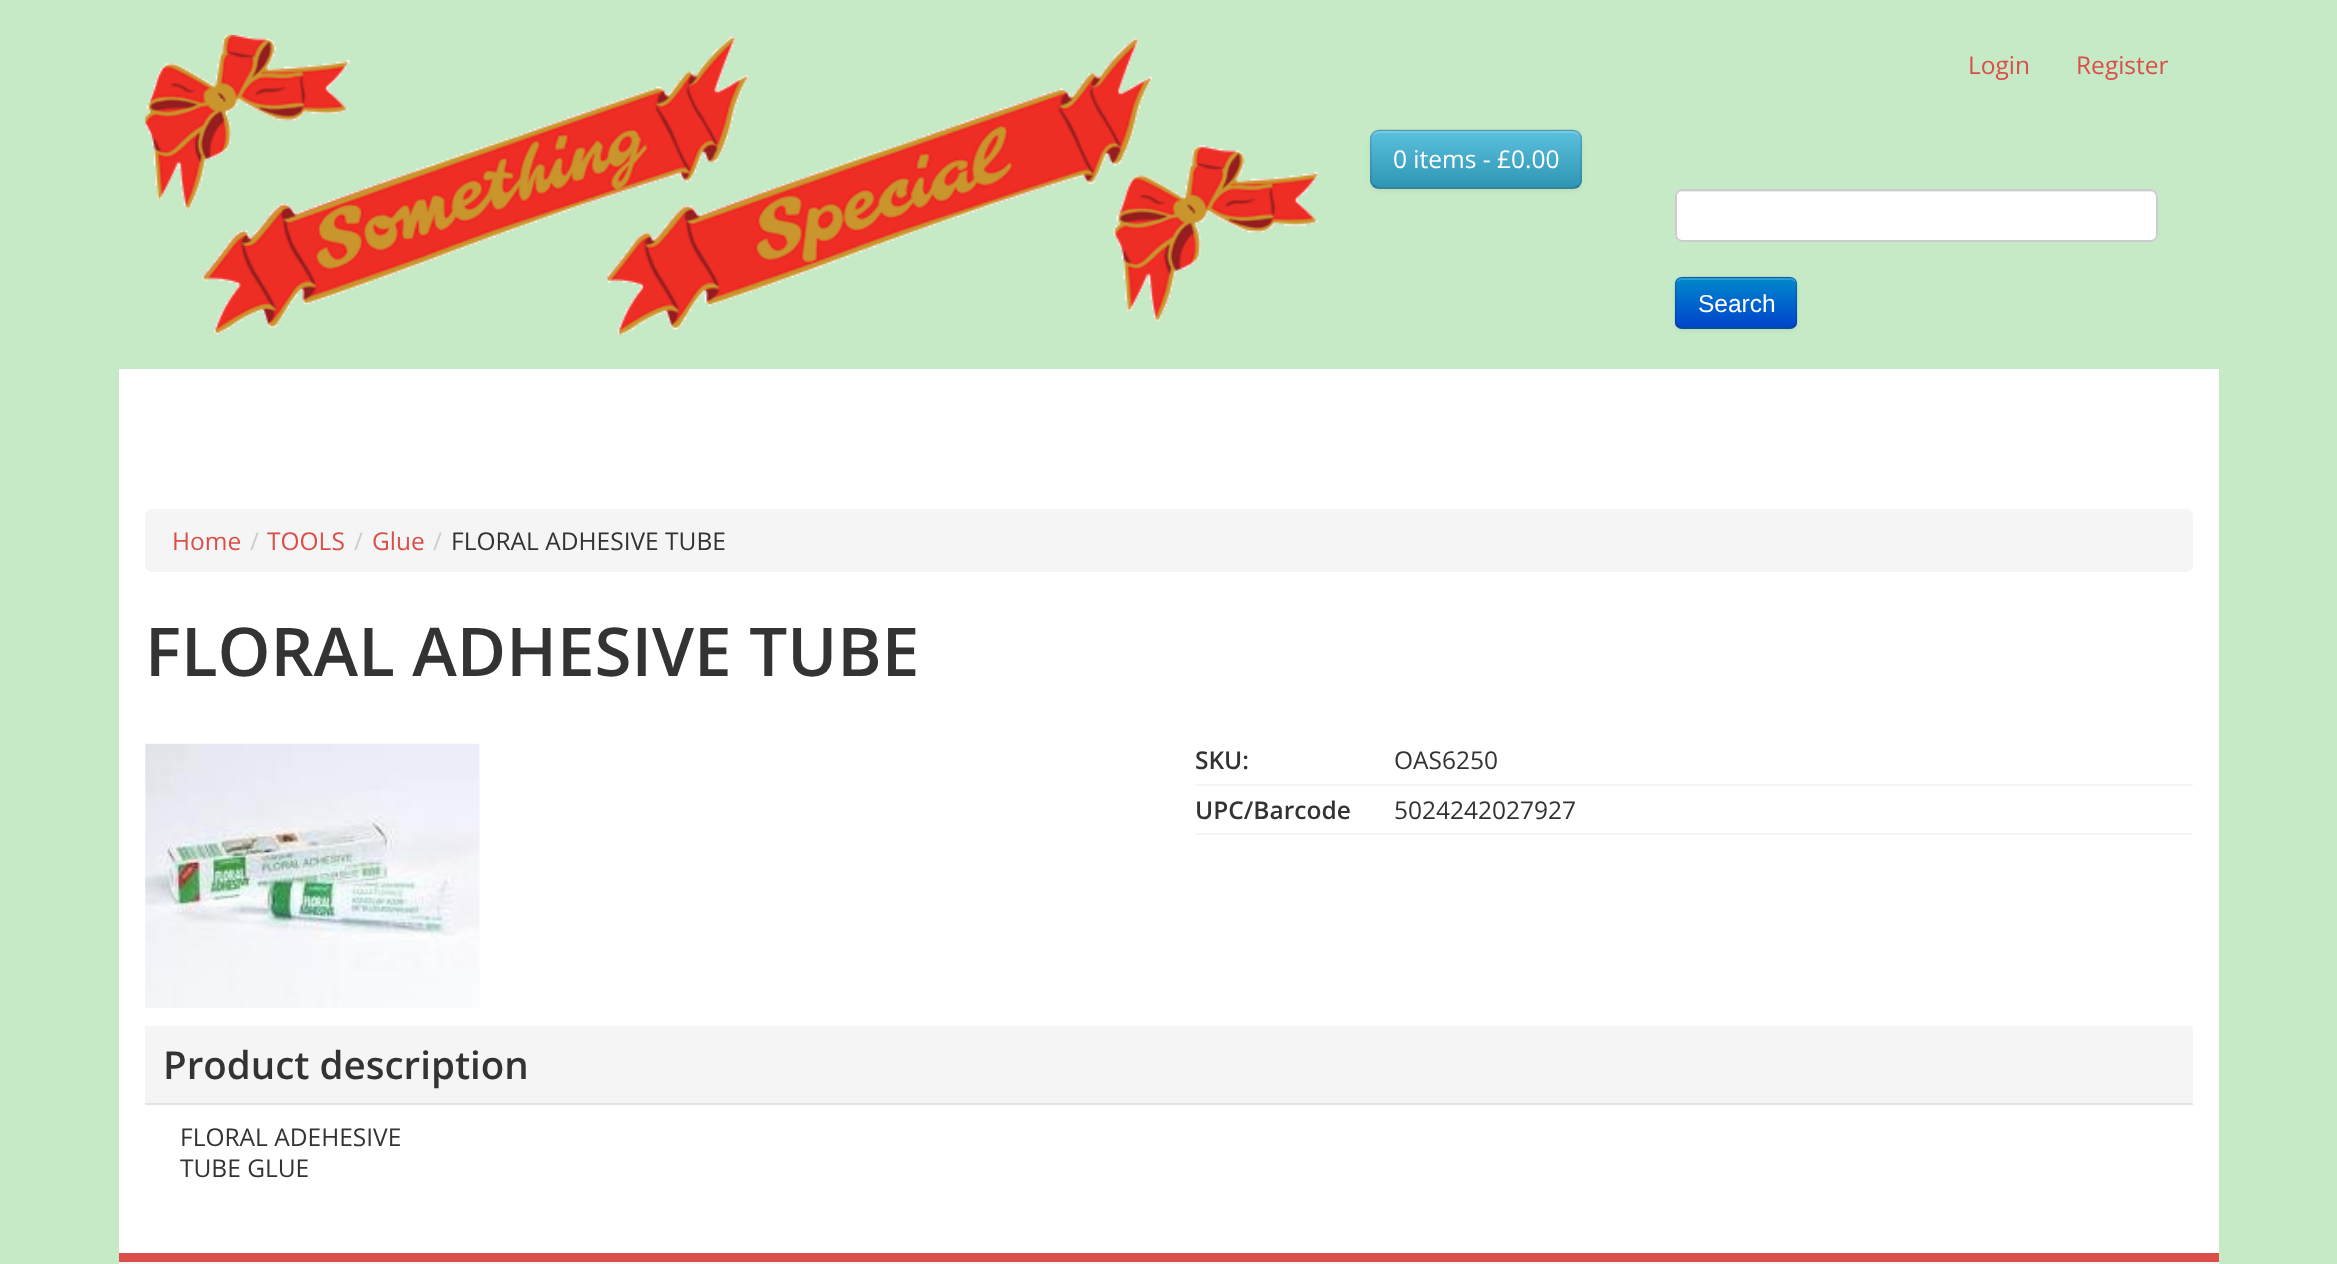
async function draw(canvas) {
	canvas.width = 2337;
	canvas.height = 1264;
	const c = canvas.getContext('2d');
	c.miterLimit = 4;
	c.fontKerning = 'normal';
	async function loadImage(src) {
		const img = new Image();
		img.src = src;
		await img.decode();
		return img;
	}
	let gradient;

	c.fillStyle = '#c6e9c6';
	c.fillRect(0, 0, 2337, 1264);
	c.drawImage(await loadImage('img1.png'), 145, 35, 1173, 300);
	c.font = '24.5px Open Sans';
	c.fillStyle = '#da4f49';
	c.fillText('Login', 1968, 74);
	c.fillText('Register', 2076, 74);
	c.fillStyle = '#0000000d';
	c.filter = 'blur(2px)';
	c.beginPath();
	c.roundRect(1370, 131, 212, 60, 9);
	c.fill();
	c.filter = 'none';
	c.fillStyle = '#49afcd';
	c.beginPath();
	c.roundRect(1370, 130, 212, 59, 9);
	c.fill();
	c.save();
	c.beginPath();
	c.roundRect(1370, 130, 212, 59, 9);
	c.clip();
	gradient = c.createLinearGradient(1476, 131, 1476, 187);
	gradient.addColorStop(0, '#5bc0de');
	gradient.addColorStop(1, '#2f96b4');
	c.fillStyle = gradient;
	c.fillRect(1370, 131, 212, 56);
	c.restore();
	c.fillStyle = '#ffffff33';
	c.beginPath();
	c.moveTo(1379, 133);
	c.lineTo(1573, 133);
	c.bezierCurveTo(1577, 133, 1580, 136, 1580, 140);
	c.lineTo(1580, 138);
	c.bezierCurveTo(1580, 134, 1577, 131, 1573, 131);
	c.lineTo(1379, 131);
	c.bezierCurveTo(1375, 131, 1372, 134, 1372, 138);
	c.lineTo(1372, 140);
	c.bezierCurveTo(1372, 136, 1375, 133, 1379, 133);
	c.closePath();
	c.fill();
	c.beginPath();
	c.moveTo(1579, 186);
	c.bezierCurveTo(1577.5, 187.5, 1575.5, 188, 1573, 188);
	c.lineTo(1379, 188);
	c.bezierCurveTo(1377, 188, 1375, 187.5, 1373.5, 186);
	c.strokeStyle = '#00000040';
	c.lineWidth = 1.8;
	c.stroke();
	c.beginPath();
	c.moveTo(1373.5, 186);
	c.bezierCurveTo(1370, 182.5, 1371, 177.5, 1371, 173);
	c.lineTo(1371, 166);
	c.bezierCurveTo(1371, 123.5, 1365, 130.5, 1411.5, 130.5);
	c.lineTo(1541, 130.5);
	c.bezierCurveTo(1587.5, 130.5, 1581, 123.5, 1581, 166);
	c.lineTo(1581, 173);
	c.bezierCurveTo(1581, 177.5, 1582, 182.5, 1579, 186);
	c.strokeStyle = '#0000001a';
	c.stroke();
	c.fillStyle = '#fff';
	c.fillText('0 items - £0.00', 1393, 168);
	c.beginPath();
	c.roundRect(1675, 189, 483, 53, 7);
	c.fill();
	c.fillStyle = '#ececec';
	c.beginPath();
	c.moveTo(1682, 192);
	c.lineTo(2151, 192);
	c.bezierCurveTo(2154, 192, 2156, 195, 2156, 198);
	c.lineTo(2156, 196);
	c.bezierCurveTo(2156, 193, 2154, 191, 2151, 191);
	c.lineTo(1682, 191);
	c.bezierCurveTo(1680, 191, 1678, 193, 1677, 195);
	c.bezierCurveTo(1678, 193, 1680, 192, 1682, 192);
	c.closePath();
	c.fill();
	c.beginPath();
	c.roundRect(1676, 190, 481, 51, 6);
	c.strokeStyle = '#ccc';
	c.lineWidth = 2;
	c.stroke();
	c.fillStyle = '#0000000d';
	c.filter = 'blur(2px)';
	c.beginPath();
	c.roundRect(1675, 278, 122, 53, 7);
	c.fill();
	c.filter = 'none';
	c.fillStyle = '#006dcc';
	c.beginPath();
	c.roundRect(1675, 277, 122, 52, 7);
	c.fill();
	c.save();
	c.beginPath();
	c.roundRect(1675, 277, 122, 52, 7);
	c.clip();
	gradient = c.createLinearGradient(1736, 278, 1736, 327);
	gradient.addColorStop(0, '#08c');
	gradient.addColorStop(1, '#04c');
	c.fillStyle = gradient;
	c.fillRect(1675, 278, 122, 49);
	c.restore();
	c.fillStyle = '#ffffff33';
	c.beginPath();
	c.moveTo(1682, 280);
	c.lineTo(1790, 280);
	c.bezierCurveTo(1793, 280, 1796, 282, 1796, 285);
	c.lineTo(1796, 283);
	c.bezierCurveTo(1796, 280, 1794, 278, 1791, 278);
	c.lineTo(1682, 278);
	c.bezierCurveTo(1680, 278, 1677, 280, 1677, 282);
	c.bezierCurveTo(1678, 281, 1680, 280, 1682, 280);
	c.closePath();
	c.fill();
	c.beginPath();
	c.moveTo(1794.5, 326.5);
	c.bezierCurveTo(1793.5, 327.5, 1792, 328, 1790, 328);
	c.lineTo(1682, 328);
	c.bezierCurveTo(1680, 328, 1678.5, 327.5, 1677.5, 326.5);
	c.strokeStyle = '#00000040';
	c.lineWidth = 1.8;
	c.stroke();
	c.beginPath();
	c.moveTo(1677.5, 326.5);
	c.bezierCurveTo(1674.5, 323.5, 1675.5, 319, 1675.5, 315.5);
	c.lineTo(1675.5, 303);
	c.bezierCurveTo(1675.5, 274.5, 1671.5, 277.5, 1700, 277.5);
	c.lineTo(1772, 277.5);
	c.bezierCurveTo(1800.5, 277.5, 1796.5, 274.5, 1796.5, 303);
	c.lineTo(1796.5, 315.5);
	c.bezierCurveTo(1796.5, 319, 1797.5, 323.5, 1794.5, 326.5);
	c.strokeStyle = '#0000001a';
	c.stroke();
	c.font = '24.5px Liberation Sans';
	c.fillStyle = '#fff';
	c.fillText('Search', 1698, 312);
	c.fillRect(119, 369, 2100, 884);
	c.fillStyle = '#f5f5f5';
	c.beginPath();
	c.roundRect(145, 509, 2048, 63, 7);
	c.fill();
	c.font = '24.5px Open Sans';
	c.fillStyle = '#da4f49';
	c.fillText('Home', 172, 550);
	c.fillStyle = '#ccc';
	c.fillText('/', 250, 550);
	c.fillStyle = '#da4f49';
	c.fillText('TOOLS', 267, 550);
	c.fillStyle = '#ccc';
	c.fillText('/', 354, 550);
	c.fillStyle = '#da4f49';
	c.fillText('Glue', 372, 550);
	c.fillStyle = '#ccc';
	c.fillText('/', 433, 550);
	c.fillStyle = '#333';
	c.fillText('FLORAL ADHESIVE TUBE', 451, 550);
	c.font = '600 67.4px Open Sans';
	c.fillText('FLORAL ADHESIVE TUBE', 145, 676);
	c.drawImage(await loadImage('img2.png'), 145, 743, 335, 265);
	c.fillStyle = '#f5f5f5';
	c.fillRect(1195, 784, 998, 2);
	c.font = '600 24.5px Open Sans';
	c.fillStyle = '#333';
	c.fillText('SKU:', 1195, 769);
	c.font = '24.5px Open Sans';
	c.fillText('OAS6250', 1394, 769);
	c.fillStyle = '#f5f5f5';
	c.fillRect(1195, 833, 998, 2);
	c.font = '600 24.5px Open Sans';
	c.fillStyle = '#333';
	c.fillText('UPC/Barcode', 1195, 819);
	c.font = '24.5px Open Sans';
	c.fillText('5024242027927', 1394, 819);
	c.fillStyle = '#f5f5f5';
	c.fillRect(145, 1026, 2048, 77);
	c.fillStyle = '#e3e3e3';
	c.fillRect(145, 1103, 2048, 2);
	c.font = '600 38.5px Open Sans';
	c.fillStyle = '#333';
	c.fillText('Product description', 163, 1079);
	c.font = '24.5px Open Sans';
	c.fillText('FLORAL ADEHESIVE', 180, 1146);
	c.fillText('TUBE GLUE', 180, 1177);
	c.fillStyle = '#f5f5f5';
	c.fillRect(119, 1262, 2100, 2);
	c.fillStyle = '#da4f49';
	c.fillRect(119, 1253, 2100, 9);
}

draw(document.querySelector('canvas'));
